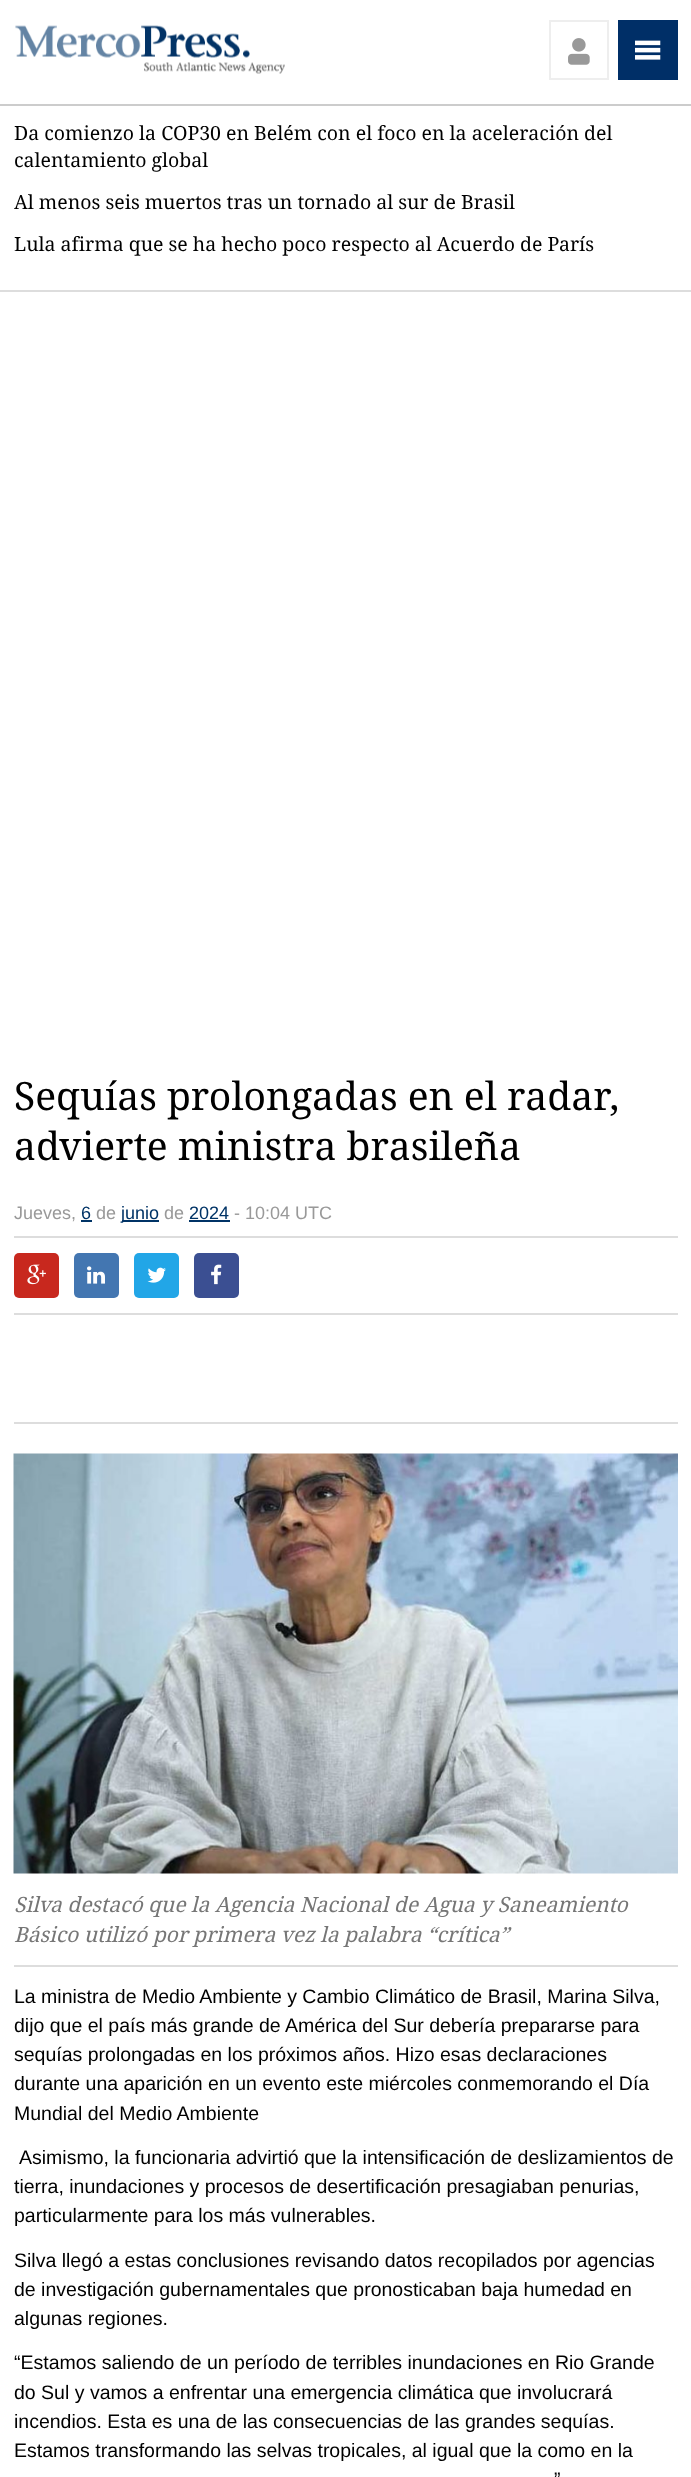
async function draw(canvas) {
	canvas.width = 691;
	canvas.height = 2477;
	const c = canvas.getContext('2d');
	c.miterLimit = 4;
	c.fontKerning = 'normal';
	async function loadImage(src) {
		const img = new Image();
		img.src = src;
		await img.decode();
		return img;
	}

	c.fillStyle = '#fff';
	c.fillRect(0, 0, 691, 2477);
	c.fillStyle = '#ccc';
	c.fillRect(0, 104, 691, 2);
	c.drawImage(await loadImage('img1.png'), 15, 25, 270, 49);
	c.strokeStyle = '#eee';
	c.lineWidth = 2;
	c.strokeRect(550, 21, 58, 58);
	c.drawImage(await loadImage('img2.png'), 568, 38, 22, 27);
	c.fillStyle = '#002f67';
	c.fillRect(618, 20, 60, 60);
	c.drawImage(await loadImage('img3.png'), 635, 40, 26, 20);
	c.fillStyle = '#ddd';
	c.fillRect(0, 290, 691, 2);
	c.font = '19.5px Droid Serif';
	c.fillStyle = '#000';
	for (const [text, x, y] of [
		['Da comienzo la COP30 en Belém con el foco en la aceleración del', 14, 140],
		['calentamiento global', 14, 167],
		['Al menos seis muertos tras un tornado al sur de Brasil', 14, 209],
		['Lula afirma que se ha hecho poco respecto al Acuerdo de París', 14, 251],
	]) {
		c.fillText(text, x, y);
	}
	c.font = '39px Droid Serif';
	c.fillText('Sequías prolongadas en el radar,', 14, 1110);
	c.fillText('advierte ministra brasileña', 14, 1160);
	c.fillStyle = '#ddd';
	c.fillRect(14, 1236, 664, 2);
	c.font = '18px Liberation Sans';
	c.fillStyle = '#999';
	c.fillText('Jueves,', 14, 1219);
	c.fillStyle = '#036';
	c.fillText('6', 81, 1219);
	c.fillRect(81, 1220, 11, 2);
	c.fillStyle = '#999';
	c.fillText('de', 96, 1219);
	c.fillStyle = '#036';
	c.fillRect(122, 1220, 37, 2);
	c.fillText('junio', 121, 1219);
	c.fillStyle = '#999';
	c.fillText('de', 164, 1219);
	c.fillStyle = '#036';
	c.fillText('2024', 189, 1219);
	c.fillRect(189, 1220, 41, 2);
	c.fillStyle = '#999';
	c.fillText('- 10:04 UTC', 234, 1219);
	c.fillStyle = '#ddd';
	c.fillRect(14, 1313, 664, 2);
	c.fillStyle = '#c8281e';
	c.beginPath();
	c.roundRect(14, 1253, 45, 45, 5);
	c.fill();
	c.drawImage(await loadImage('img4.png'), 27, 1264, 19, 21);
	c.fillStyle = '#4376b1';
	c.beginPath();
	c.roundRect(74, 1253, 45, 45, 5);
	c.fill();
	c.drawImage(await loadImage('img5.png'), 87, 1266, 18, 18);
	c.fillStyle = '#22a6e7';
	c.beginPath();
	c.roundRect(134, 1253, 45, 45, 5);
	c.fill();
	c.drawImage(await loadImage('img6.png'), 147, 1267, 19, 16);
	c.fillStyle = '#3b4f92';
	c.beginPath();
	c.roundRect(194, 1253, 45, 45, 5);
	c.fill();
	c.drawImage(await loadImage('img7.png'), 211, 1264, 11, 21);
	c.fillStyle = '#ddd';
	c.fillRect(14, 1422, 664, 2);
	c.fillRect(14, 1965, 664, 2);
	c.drawImage(await loadImage('img8.png'), 13, 1453, 665, 421);
	c.font = 'italic 21px Droid Serif';
	c.fillStyle = '#767676';
	c.fillText('Silva destacó que la Agencia Nacional de Agua y Saneamiento', 14, 1912);
	c.fillText('Básico utilizó por primera vez la palabra “crítica”', 14, 1942);
	c.font = '19.5px Liberation Sans';
	c.fillStyle = '#000';
	for (const [text, x, y] of [
		['La ministra de Medio Ambiente y Cambio Climático de Brasil, Marina Silva,', 14, 2003],
		['dijo que el país más grande de América del Sur debería prepararse para', 14, 2032],
		['sequías prolongadas en los próximos años. Hizo esas declaraciones', 14, 2061],
		['durante una aparición en un evento este miércoles conmemorando el Día', 14, 2090],
		['Mundial del Medio Ambiente', 14, 2120],
		['Asimismo, la funcionaria advirtió que la intensificación de deslizamientos de', 19, 2164],
		['tierra, inundaciones y procesos de desertificación presagiaban penurias,', 14, 2193],
		['particularmente para los más vulnerables.', 14, 2222],
		['Silva llegó a estas conclusiones revisando datos recopilados por agencias', 14, 2267],
		['de investigación gubernamentales que pronosticaban baja humedad en', 14, 2296],
		['algunas regiones.', 14, 2325],
		['“Estamos saliendo de un período de terribles inundaciones en Rio Grande', 14, 2369],
		['do Sul y vamos a enfrentar una emergencia climática que involucrará', 14, 2399],
		['incendios. Esta es una de las consecuencias de las grandes sequías.', 14, 2428],
		['Estamos transformando las selvas tropicales, al igual que la como en la', 14, 2457],
		['”', 554, 2486],
	]) {
		c.fillText(text, x, y);
	}
}

draw(document.querySelector('canvas'));
